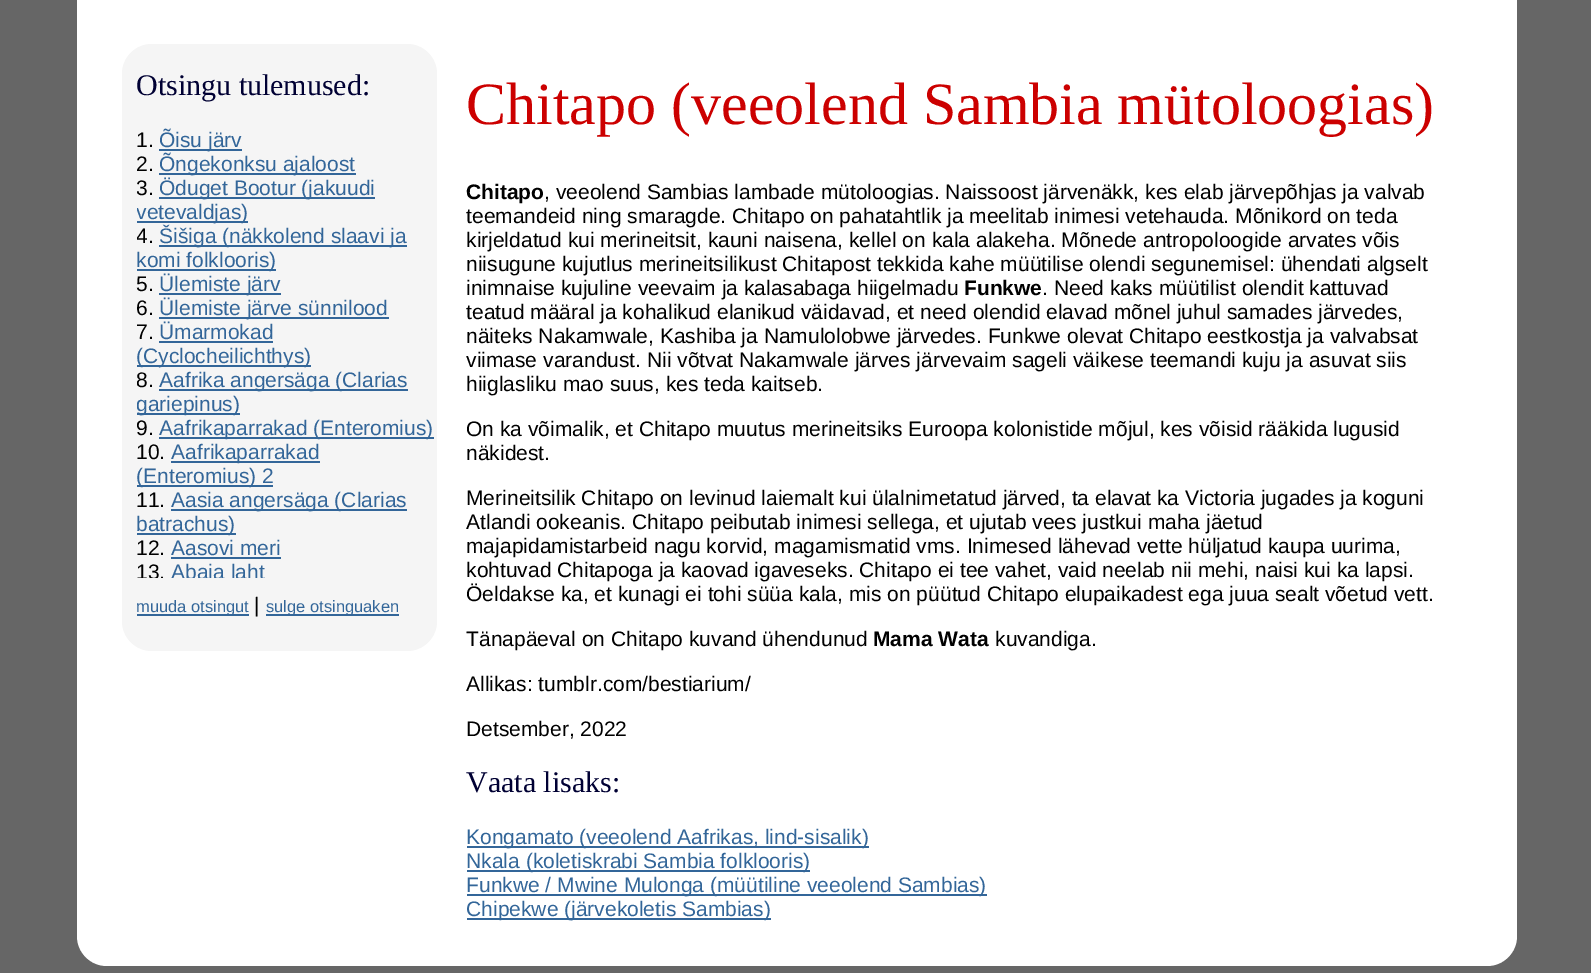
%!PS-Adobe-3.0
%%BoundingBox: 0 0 1591 973
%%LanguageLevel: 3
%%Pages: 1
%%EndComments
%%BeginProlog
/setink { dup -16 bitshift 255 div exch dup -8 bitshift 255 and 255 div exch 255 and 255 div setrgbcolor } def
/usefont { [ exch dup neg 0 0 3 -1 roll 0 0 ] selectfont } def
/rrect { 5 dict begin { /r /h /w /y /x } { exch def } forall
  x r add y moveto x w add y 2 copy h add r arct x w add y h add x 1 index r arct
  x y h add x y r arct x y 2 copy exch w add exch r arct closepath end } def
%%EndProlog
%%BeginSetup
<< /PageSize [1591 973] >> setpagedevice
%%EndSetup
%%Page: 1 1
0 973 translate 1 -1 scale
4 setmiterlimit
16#666666 setink
0 0 1591 973 rectfill
16#FFFFFF setink
77 -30 1440 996 30 rrect fill
16#F5F5F5 setink
122 44 315 607 30 rrect fill
/LiberationSerif-Regular 30 usefont
16#000033 setink
136 95 moveto (Otsingu tulemused:) show
/LiberationSans-Regular 21 usefont
16#000000 setink
136 147 moveto (1.) show
16#336699 setink
159 149 83 2 rectfill
159 147 moveto (Õisu järv) show
16#000000 setink
136 171 moveto (2.) show
16#336699 setink
159 173 197 2 rectfill
159 171 moveto (Õngekonksu ajaloost) show
gsave
137 128 300 450 rectclip
16#000000 setink
136 195 moveto (3.) show
grestore
159 197 216 2 rectfill
159 195 moveto (Öduget Bootur \(jakuudi) show
137 221 111 2 rectfill
gsave
137 128 300 450 rectclip
136 219 moveto (vetevaldjas\)) show
16#000000 setink
136 243 moveto (4.) show
grestore
159 245 248 2 rectfill
159 243 moveto (Šišiga \(näkkolend slaavi ja) show
137 269 139 2 rectfill
136 267 moveto (komi folklooris\)) show
16#000000 setink
136 291 moveto (5.) show
16#336699 setink
159 293 122 2 rectfill
159 291 moveto (Ülemiste järv) show
gsave
137 128 300 450 rectclip
16#000000 setink
136 315 moveto (6.) show
grestore
159 317 230 2 rectfill
159 315 moveto (Ülemiste järve sünnilood) show
16#000000 setink
136 339 moveto (7.) show
16#336699 setink
159 339 moveto (Ümarmokad) show
159 341 114 2 rectfill
137 365 174 2 rectfill
136 363 moveto (\(Cyclocheilichthys\)) show
gsave
137 128 300 450 rectclip
16#000000 setink
136 387 moveto (8.) show
grestore
159 389 249 2 rectfill
159 387 moveto (Aafrika angersäga \(Clarias) show
137 413 103 2 rectfill
gsave
137 128 300 450 rectclip
136 411 moveto (gariepinus\)) show
16#000000 setink
136 435 moveto (9.) show
grestore
159 437 275 2 rectfill
159 435 moveto (Aafrikaparrakad \(Enteromius\)) show
16#000000 setink
136 459 moveto (10.) show
16#336699 setink
171 461 149 2 rectfill
171 459 moveto (Aafrikaparrakad) show
137 485 136 2 rectfill
136 483 moveto (\(Enteromius\) 2) show
16#000000 setink
136 507 moveto (11.) show
16#336699 setink
171 509 236 2 rectfill
171 507 moveto (Aasia angersäga \(Clarias) show
137 533 99 2 rectfill
136 531 moveto (batrachus\)) show
16#000000 setink
136 555 moveto (12.) show
16#336699 setink
171 555 moveto (Aasovi meri) show
171 557 110 2 rectfill
gsave
137 128 300 450 rectclip
16#000000 setink
136 579 moveto (13.) show
16#336699 setink
171 579 moveto (Abaja laht) show
grestore
137 614 112 2 rectfill
/LiberationSans-Regular 16.5 usefont
136 612 moveto (muuda otsingut) show
/LiberationSans-Regular 21 usefont
16#000000 setink
254 612 moveto (|) show
16#336699 setink
266 614 133 2 rectfill
/LiberationSans-Regular 16.5 usefont
266 612 moveto (sulge otsinguaken) show
/LiberationSerif-Regular 60 usefont
16#CC0000 setink
466 124 moveto (Chitapo \(veeolend Sambia mütoloogias\)) show
/LiberationSans-Bold 21 usefont
16#000000 setink
466 199 moveto (Chitapo) show
/LiberationSans-Regular 21 usefont
[
    [(, veeolend Sambias lambade mütoloogias. Naissoost järvenäkk, kes elab järvepõhjas ja valvab) 544 199]
    [(teemandeid ning smaragde. Chitapo on pahatahtlik ja meelitab inimesi vetehauda. Mõnikord on teda) 466 223]
    [(kirjeldatud kui merineitsit, kauni naisena, kellel on kala alakeha. Mõnede antropoloogide arvates võis) 466 247]
    [(niisugune kujutlus merineitsilikust Chitapost tekkida kahe müütilise olendi segunemisel: ühendati algselt) 466 271]
    [(inimnaise kujuline veevaim ja kalasabaga hiigelmadu) 466 295]
] { aload pop moveto show } forall
/LiberationSans-Bold 21 usefont
964 295 moveto (Funkwe) show
/LiberationSans-Regular 21 usefont
[
    [(. Need kaks müütilist olendit kattuvad) 1042 295]
    [(teatud määral ja kohalikud elanikud väidavad, et need olendid elavad mõnel juhul samades järvedes,) 466 319]
    [(näiteks Nakamwale, Kashiba ja Namulolobwe järvedes. Funkwe olevat Chitapo eestkostja ja valvabsat) 466 343]
    [(viimase varandust. Nii võtvat Nakamwale järves järvevaim sageli väikese teemandi kuju ja asuvat siis) 466 367]
    [(hiiglasliku mao suus, kes teda kaitseb.) 466 391]
    [(On ka võimalik, et Chitapo muutus merineitsiks Euroopa kolonistide mõjul, kes võisid rääkida lugusid) 466 436]
    [(näkidest.) 466 460]
    [(Merineitsilik Chitapo on levinud laiemalt kui ülalnimetatud järved, ta elavat ka Victoria jugades ja koguni) 466 505]
    [(Atlandi ookeanis. Chitapo peibutab inimesi sellega, et ujutab vees justkui maha jäetud) 466 529]
    [(majapidamistarbeid nagu korvid, magamismatid vms. Inimesed lähevad vette hüljatud kaupa uurima,) 466 553]
    [(kohtuvad Chitapoga ja kaovad igaveseks. Chitapo ei tee vahet, vaid neelab nii mehi, naisi kui ka lapsi.) 466 577]
    [(Öeldakse ka, et kunagi ei tohi süüa kala, mis on püütud Chitapo elupaikadest ega juua sealt võetud vett.) 466 601]
    [(Tänapäeval on Chitapo kuvand ühendunud) 466 646]
] { aload pop moveto show } forall
/LiberationSans-Bold 21 usefont
873 646 moveto (Mama Wata) show
/LiberationSans-Regular 21 usefont
[
    [(kuvandiga.) 995 646]
    [(Allikas: tumblr.com/bestiarium/) 466 691]
    [(Detsember, 2022) 466 736]
] { aload pop moveto show } forall
/LiberationSerif-Regular 30 usefont
16#000033 setink
466 792 moveto (Vaata lisaks:) show
16#336699 setink
467 846 402 2 rectfill
/LiberationSans-Regular 21 usefont
466 844 moveto (Kongamato \(veeolend Aafrikas, lind-sisalik\)) show
467 870 343 2 rectfill
466 868 moveto (Nkala \(koletiskrabi Sambia folklooris\)) show
467 894 520 2 rectfill
466 892 moveto (Funkwe / Mwine Mulonga \(müütiline veeolend Sambias\)) show
467 918 304 2 rectfill
466 916 moveto (Chipekwe \(järvekoletis Sambias\)) show
showpage
%%EOF
